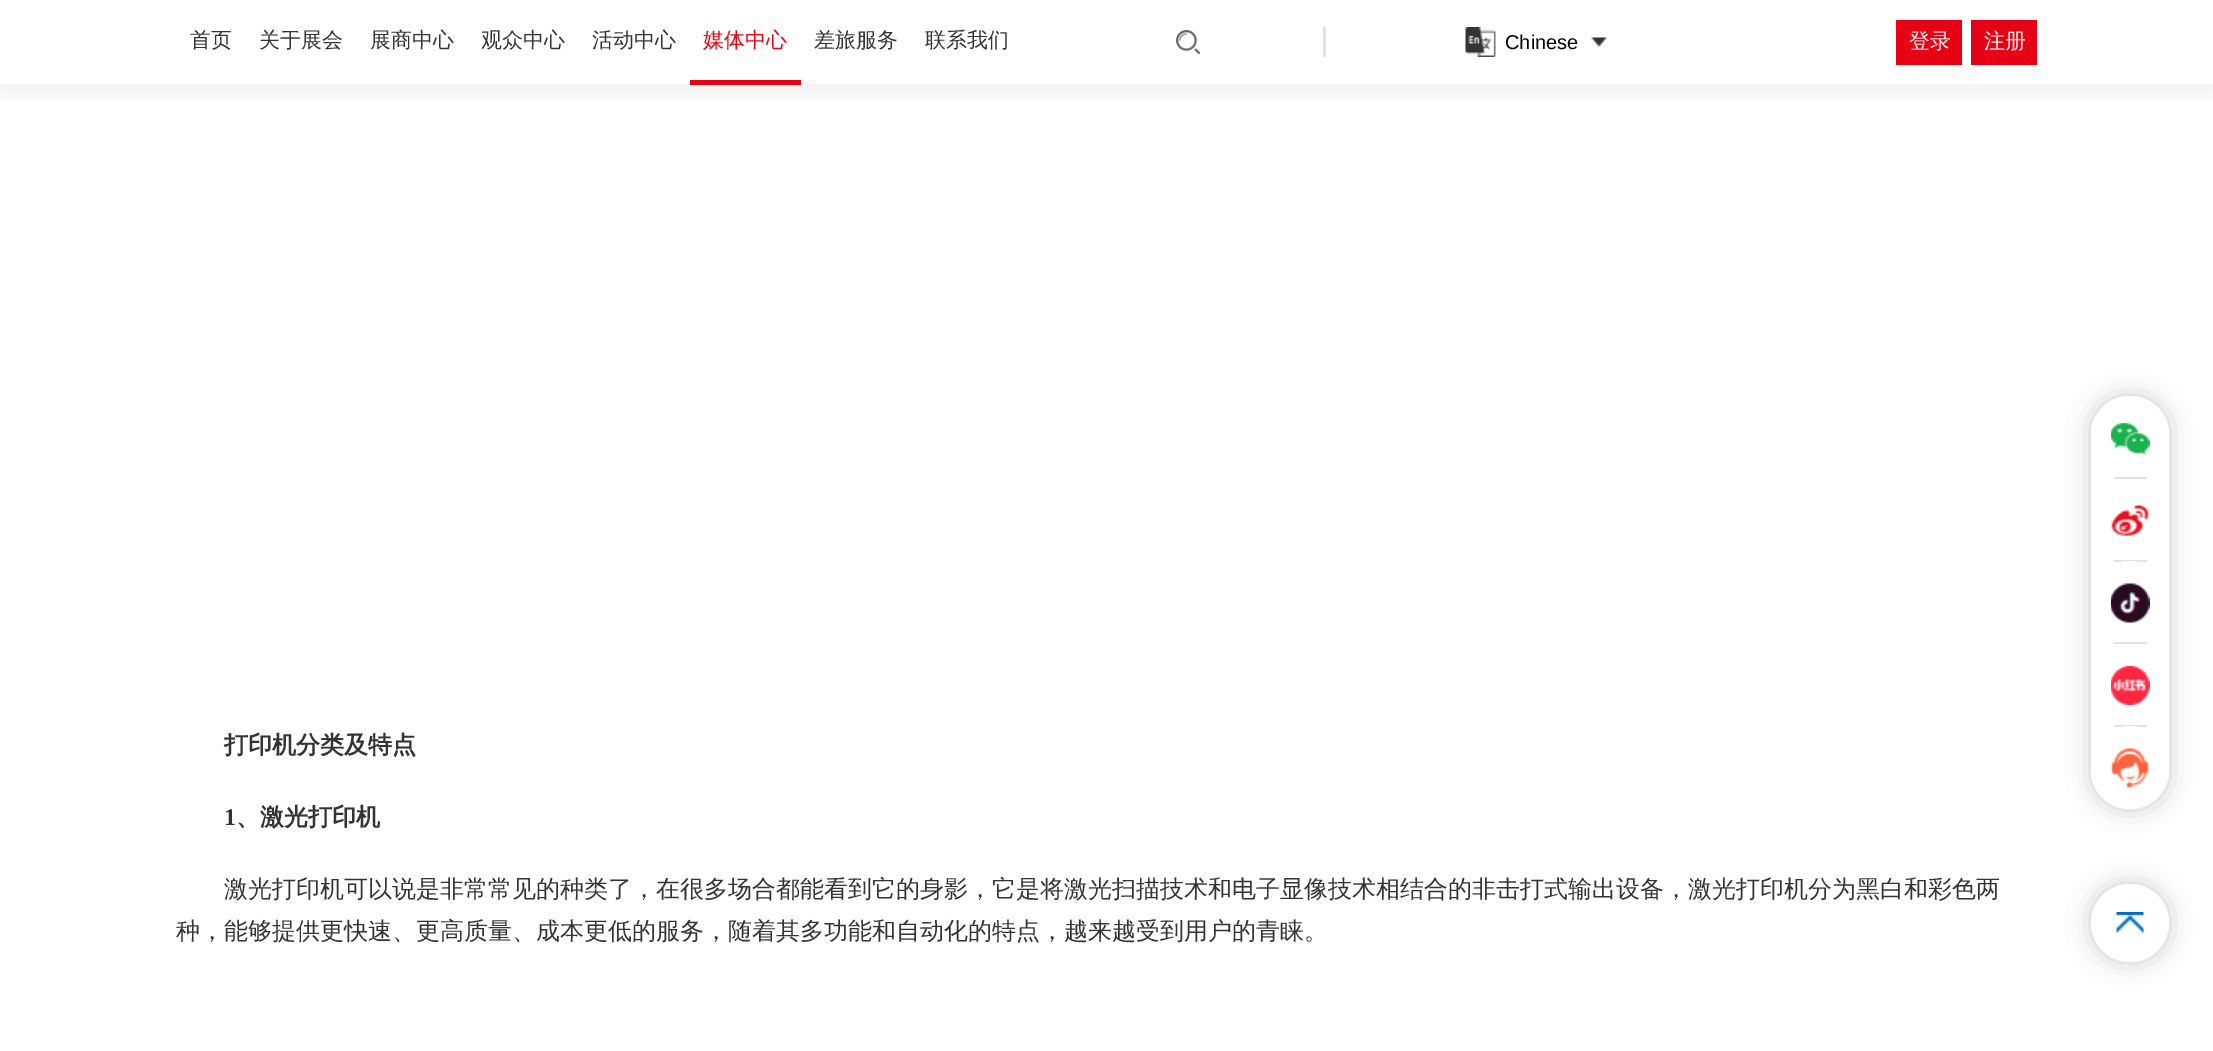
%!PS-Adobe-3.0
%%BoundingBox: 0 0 2213 1051
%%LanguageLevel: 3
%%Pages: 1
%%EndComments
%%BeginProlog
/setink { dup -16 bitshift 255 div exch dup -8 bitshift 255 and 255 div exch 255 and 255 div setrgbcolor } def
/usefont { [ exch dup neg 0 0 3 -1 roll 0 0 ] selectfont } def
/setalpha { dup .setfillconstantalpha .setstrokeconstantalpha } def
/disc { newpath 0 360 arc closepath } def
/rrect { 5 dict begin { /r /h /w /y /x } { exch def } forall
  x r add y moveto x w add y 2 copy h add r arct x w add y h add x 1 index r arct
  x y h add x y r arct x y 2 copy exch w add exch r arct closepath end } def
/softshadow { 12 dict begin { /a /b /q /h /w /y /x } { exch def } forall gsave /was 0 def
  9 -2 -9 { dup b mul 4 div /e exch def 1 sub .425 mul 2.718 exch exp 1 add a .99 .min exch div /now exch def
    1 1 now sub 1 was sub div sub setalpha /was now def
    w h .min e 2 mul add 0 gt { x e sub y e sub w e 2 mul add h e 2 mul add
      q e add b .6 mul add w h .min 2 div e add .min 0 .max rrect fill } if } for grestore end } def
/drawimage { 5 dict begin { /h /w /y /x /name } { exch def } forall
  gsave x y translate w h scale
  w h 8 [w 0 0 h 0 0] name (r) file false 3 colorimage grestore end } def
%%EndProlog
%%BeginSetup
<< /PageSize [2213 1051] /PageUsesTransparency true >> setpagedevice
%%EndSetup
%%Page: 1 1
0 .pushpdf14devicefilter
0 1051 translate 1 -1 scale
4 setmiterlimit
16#FFFFFF setink
0 0 2213 1051 rectfill
gsave
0 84 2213 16 rectclip
16#000000 setink
0 5 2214 84 0 19 0.07 softshadow
grestore
/WenQuanYiZenHei-Medium 21 usefont
16#333333 setink
[
    [(首页) 190 47]
    [(关于展会) 259 47]
    [(展商中心) 370 47]
    [(观众中心) 481 47]
    [(活动中心) 592 47]
] { aload pop moveto show } forall
16#E60214 setink
703 47 moveto (媒体中心) show
690 80 111 5 rectfill
16#333333 setink
814 47 moveto (差旅服务) show
925 47 moveto (联系我们) show
(img1.raw) 1176 30 24 24 drawimage
16#E2E2E2 setink
1323 27 3 30 rectfill
(img2.raw) 1465 27 31 30 drawimage
(img3.raw) 1591 37 16 10 drawimage
/LiberationSans-Regular 20 usefont
16#000000 setink
1505 49 moveto (Chinese) show
16#E60214 setink
1896 20 66 45 rectfill
/WenQuanYiZenHei-Medium 21 usefont
16#FFFFFF setink
1909 48 moveto (登录) show
16#E60214 setink
1971 20 66 45 rectfill
16#FFFFFF setink
1984 48 moveto (注册) show
/WenQuanYiZenHei-Bold 24 usefont
16#333333 setink
224 753 moveto (打印机分类及特点) show
/LiberationSerif-Bold 24 usefont
224 825 moveto (1) show
/WenQuanYiZenHei-Bold 24 usefont
236 825 moveto (、激光打印机) show
/WenQuanYiZenHei-Medium 24 usefont
224 897 moveto (激光打印机可以说是非常常见的种类了，在很多场合都能看到它的身影，它是将激光扫描技术和电子显像技术相结合的非击打式输出设备，激光打印机分为黑白和彩色两) show
176 939 moveto (种，能够提供更快速、更高质量、成本更低的服务，随着其多功能和自动化的特点，越来越受到用户的青睐。) show
16#000000 setink
2091 396 78 413 39 12 0.2 softshadow
16#FFFFFF setink
2091 396 78 413 39 rrect fill
2091 396 78 83 39 rrect fill
(img4.raw) 2111 422 39 33 drawimage
16#E2E2E2 setink
2114 477 33 2 rectfill
(img5.raw) 2111 505 38 31 drawimage
2114 560 33 2 rectfill
16#FFFFFF setink
2091 561 78 83 39 rrect fill
(img6.raw) 2111 583 39 40 drawimage
16#E2E2E2 setink
2114 642 33 2 rectfill
(img7.raw) 2111 666 39 39 drawimage
2114 725 33 2 rectfill
16#FFFFFF setink
2091 726 78 83 39 rrect fill
(img8.raw) 2111 748 38 40 drawimage
16#000000 setink
2091 884 78 78 39 12 0.2 softshadow
16#FFFFFF setink
2130 923 39 disc fill
(img9.raw) 2116 912 28 21 drawimage
.poppdf14devicefilter showpage
%%EOF
